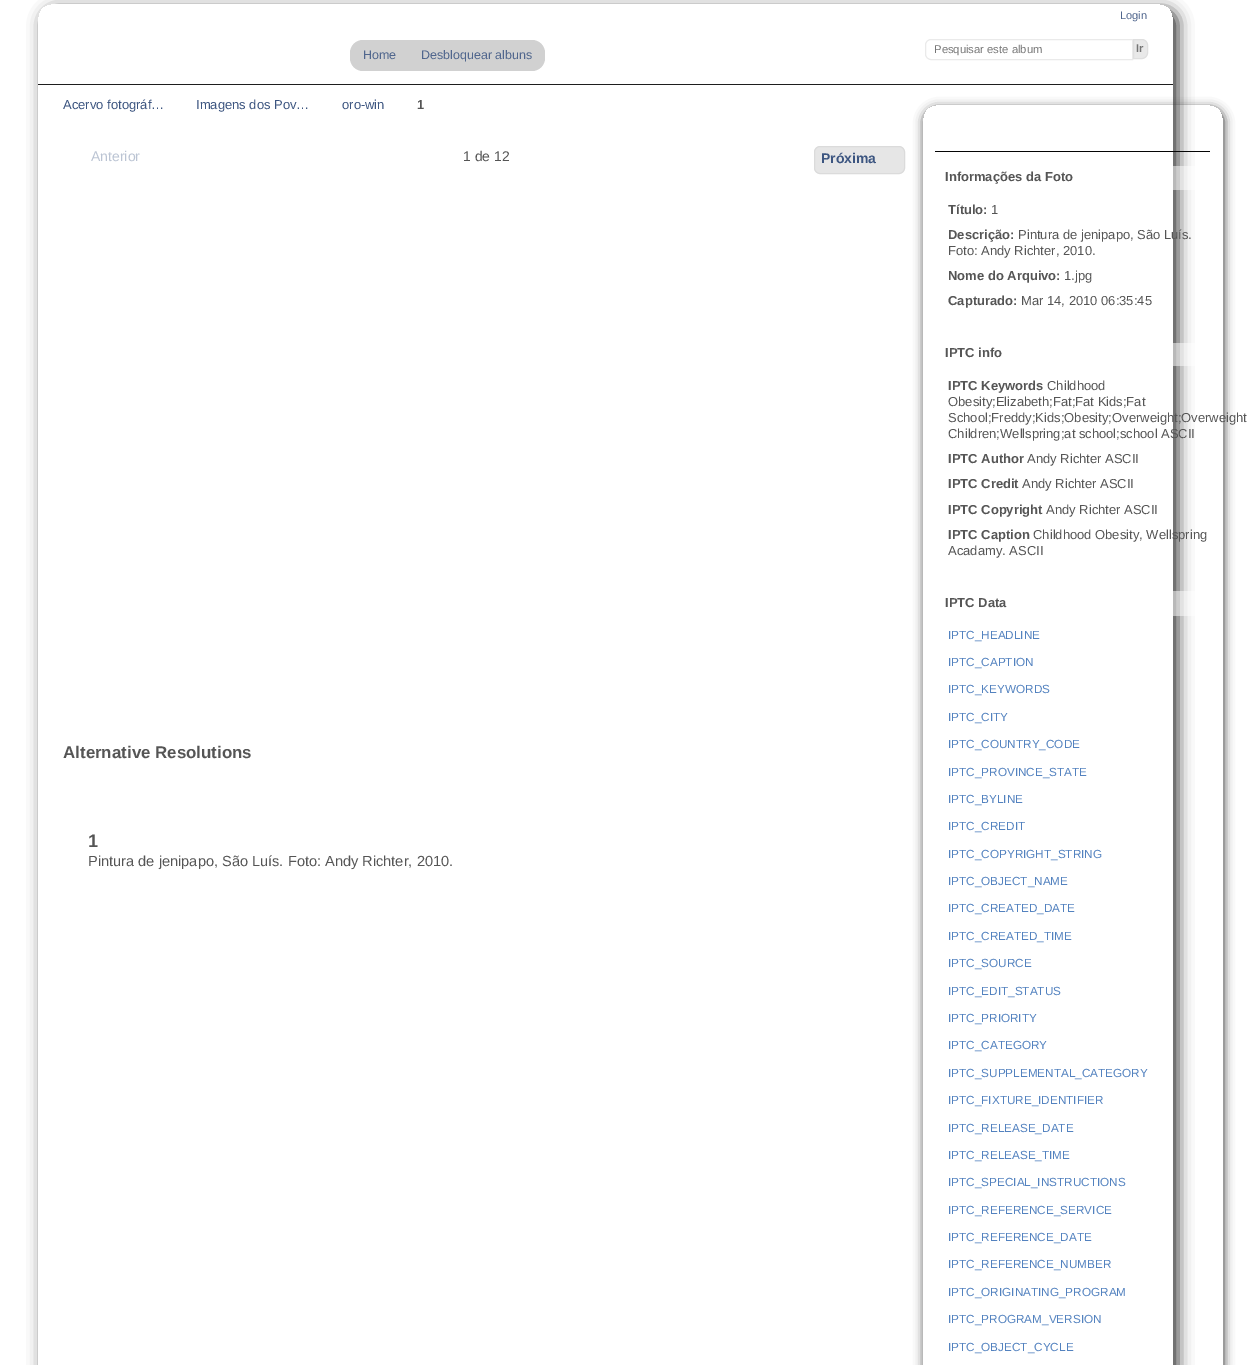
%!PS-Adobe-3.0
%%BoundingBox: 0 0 1259 1365
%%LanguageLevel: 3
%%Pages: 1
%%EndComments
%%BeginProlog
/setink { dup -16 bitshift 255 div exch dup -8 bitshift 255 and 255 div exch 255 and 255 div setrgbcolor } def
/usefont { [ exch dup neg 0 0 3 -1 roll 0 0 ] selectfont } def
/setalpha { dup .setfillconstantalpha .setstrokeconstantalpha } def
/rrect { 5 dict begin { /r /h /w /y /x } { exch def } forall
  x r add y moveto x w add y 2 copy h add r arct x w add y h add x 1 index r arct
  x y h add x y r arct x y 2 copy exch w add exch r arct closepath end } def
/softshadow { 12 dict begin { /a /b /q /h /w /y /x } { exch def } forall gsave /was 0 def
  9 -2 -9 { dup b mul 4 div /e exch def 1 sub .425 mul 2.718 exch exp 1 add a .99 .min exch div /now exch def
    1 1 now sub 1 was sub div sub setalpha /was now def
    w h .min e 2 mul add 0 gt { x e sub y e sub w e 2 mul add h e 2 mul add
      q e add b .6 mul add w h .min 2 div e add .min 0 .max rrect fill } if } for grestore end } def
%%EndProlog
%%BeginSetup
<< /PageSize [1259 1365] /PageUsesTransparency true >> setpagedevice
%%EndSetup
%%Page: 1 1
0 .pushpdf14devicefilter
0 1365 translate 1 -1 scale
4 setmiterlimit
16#FFFFFF setink
0 0 1259 1365 rectfill
gsave
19 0 moveto 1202 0 lineto 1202 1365 lineto 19 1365 lineto closepath 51 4 moveto 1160 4 lineto 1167 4 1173 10 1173 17 curveto 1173 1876 lineto 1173 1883 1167 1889 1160 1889 curveto 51 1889 lineto 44 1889 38 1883 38 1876 curveto 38 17 lineto 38 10 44 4 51 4 curveto closepath eoclip newpath
16#333333 setink
43 9 1135 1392 13 7.5 1 softshadow
grestore
0.9 setalpha
16#050505 setink
38 84 1135 1 rectfill
/LiberationSans-Regular 11 usefont
1 setalpha
16#50668D setink
1120 19 moveto (Login) show
16#D1D1D1 setink
350 40 195 31 13 rrect fill
/LiberationSans-Regular 12.5 usefont
16#50668D setink
363 59 moveto (Home) show
421 59 moveto (Desbloquear albuns) show
16#EAEAEA setink
931 39.5 moveto 1132.5 39.5 lineto 1132.5 59.5 lineto 931 59.5 lineto 928 59.5 925.5 57 925.5 54 curveto 925.5 45 lineto 925.5 42 928 39.5 931 39.5 curveto closepath stroke
/LiberationSans-Regular 11.25 usefont
16#757575 setink
934 53 moveto (Pesquisar este album) show
16#E9E9E9 setink
1133.5 39.5 moveto 1142 39.5 lineto 1145 39.5 1147.5 42 1147.5 45 curveto 1147.5 53 lineto 1147.5 56 1145 58.5 1142 58.5 curveto 1133.5 58.5 lineto closepath gsave fill grestore
16#DFDFDF setink
stroke
/LiberationSans-Bold 11.25 usefont
16#757575 setink
1136 52 moveto (Ir) show
/LiberationSans-Regular 13 usefont
16#3C5580 setink
[
    [(Acervo fotográf…) 63 109]
    [(Imagens dos Pov…) 196 109]
    [(oro-win) 342 109]
] { aload pop moveto show } forall
/LiberationSans-Bold 13 usefont
16#555555 setink
417 109 moveto (1) show
/LiberationSans-Regular 14 usefont
16#BBC4D3 setink
91 161 moveto (Anterior) show
16#555555 setink
463 161 moveto (1 de 12) show
16#E6E6E6 setink
814.5 146.5 90 27 5.5 rrect gsave fill grestore
16#DBDBDB setink
stroke
/LiberationSans-Bold 14 usefont
16#3C5580 setink
821 163 moveto (Próxima) show
/LiberationSans-Bold 16.9 usefont
16#555555 setink
63 758 moveto (Alternative Resolutions) show
/LiberationSans-Bold 18 usefont
88 847 moveto (1) show
/LiberationSans-Regular 14.6 usefont
88 866 moveto (Pintura de jenipapo, São Luís. Foto: Andy Richter, 2010.) show
gsave
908 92 moveto 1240 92 lineto 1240 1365 lineto 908 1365 lineto closepath 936 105 moveto 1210 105 lineto 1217 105 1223 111 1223 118 curveto 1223 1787 lineto 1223 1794 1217 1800 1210 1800 curveto 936 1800 lineto 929 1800 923 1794 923 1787 curveto 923 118 lineto 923 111 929 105 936 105 curveto closepath eoclip newpath
16#333333 setink
924 108 300 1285 13 5 1 softshadow
grestore
16#050505 setink
935 151 275 1 rectfill
0.5 setalpha
16#FFFFFF setink
935 166 275 24 6 rrect fill
/LiberationSans-Bold 13 usefont
1 setalpha
16#555555 setink
945 181 moveto (Informações da Foto) show
948 214 moveto (Título:) show
/LiberationSans-Regular 13 usefont
991 214 moveto (1) show
/LiberationSans-Bold 13 usefont
948 239 moveto (Descrição:) show
/LiberationSans-Regular 13 usefont
1018 239 moveto (Pintura de jenipapo, São Luís.) show
948 255 moveto (Foto: Andy Richter, 2010.) show
/LiberationSans-Bold 13 usefont
948 280 moveto (Nome do Arquivo:) show
/LiberationSans-Regular 13 usefont
1064 280 moveto (1.jpg) show
/LiberationSans-Bold 13 usefont
948 305 moveto (Capturado:) show
/LiberationSans-Regular 13 usefont
1021 305 moveto (Mar 14, 2010 06:35:45) show
0.5 setalpha
16#FFFFFF setink
935 343 275 23 6 rrect fill
/LiberationSans-Bold 13 usefont
1 setalpha
16#555555 setink
945 357 moveto (IPTC info) show
948 390 moveto (IPTC Keywords) show
/LiberationSans-Regular 13 usefont
[
    [(Childhood) 1047 390]
    [(Obesity;Elizabeth;Fat;Fat Kids;Fat) 948 406]
    [(School;Freddy;Kids;Obesity;Overweight;Overweight) 948 422]
    [(Children;Wellspring;at school;school ASCII) 948 438]
] { aload pop moveto show } forall
/LiberationSans-Bold 13 usefont
948 463 moveto (IPTC Author) show
/LiberationSans-Regular 13 usefont
1027 463 moveto (Andy Richter ASCII) show
/LiberationSans-Bold 13 usefont
948 488 moveto (IPTC Credit) show
/LiberationSans-Regular 13 usefont
1022 488 moveto (Andy Richter ASCII) show
/LiberationSans-Bold 13 usefont
948 514 moveto (IPTC Copyright) show
/LiberationSans-Regular 13 usefont
1046 514 moveto (Andy Richter ASCII) show
/LiberationSans-Bold 13 usefont
948 539 moveto (IPTC Caption) show
/LiberationSans-Regular 13 usefont
1033 539 moveto (Childhood Obesity, Wellspring) show
948 555 moveto (Acadamy. ASCII) show
0.5 setalpha
16#FFFFFF setink
935 591 275 25 6 rrect fill
/LiberationSans-Bold 13 usefont
1 setalpha
16#555555 setink
945 607 moveto (IPTC Data) show
/LiberationSans-Regular 11.75 usefont
16#5382BF setink
[
    [(IPTC_HEADLINE) 948 639]
    [(IPTC_CAPTION) 948 666]
    [(IPTC_KEYWORDS) 948 693]
    [(IPTC_CITY) 948 721]
    [(IPTC_COUNTRY_CODE) 948 748]
    [(IPTC_PROVINCE_STATE) 948 776]
    [(IPTC_BYLINE) 948 803]
    [(IPTC_CREDIT) 948 830]
    [(IPTC_COPYRIGHT_STRING) 948 858]
    [(IPTC_OBJECT_NAME) 948 885]
    [(IPTC_CREATED_DATE) 948 912]
    [(IPTC_CREATED_TIME) 948 940]
    [(IPTC_SOURCE) 948 967]
    [(IPTC_EDIT_STATUS) 948 995]
    [(IPTC_PRIORITY) 948 1022]
    [(IPTC_CATEGORY) 948 1049]
    [(IPTC_SUPPLEMENTAL_CATEGORY) 948 1077]
    [(IPTC_FIXTURE_IDENTIFIER) 948 1104]
    [(IPTC_RELEASE_DATE) 948 1132]
    [(IPTC_RELEASE_TIME) 948 1159]
    [(IPTC_SPECIAL_INSTRUCTIONS) 948 1186]
    [(IPTC_REFERENCE_SERVICE) 948 1214]
    [(IPTC_REFERENCE_DATE) 948 1241]
    [(IPTC_REFERENCE_NUMBER) 948 1268]
    [(IPTC_ORIGINATING_PROGRAM) 948 1296]
    [(IPTC_PROGRAM_VERSION) 948 1323]
    [(IPTC_OBJECT_CYCLE) 948 1351]
] { aload pop moveto show } forall
.poppdf14devicefilter showpage
%%EOF
